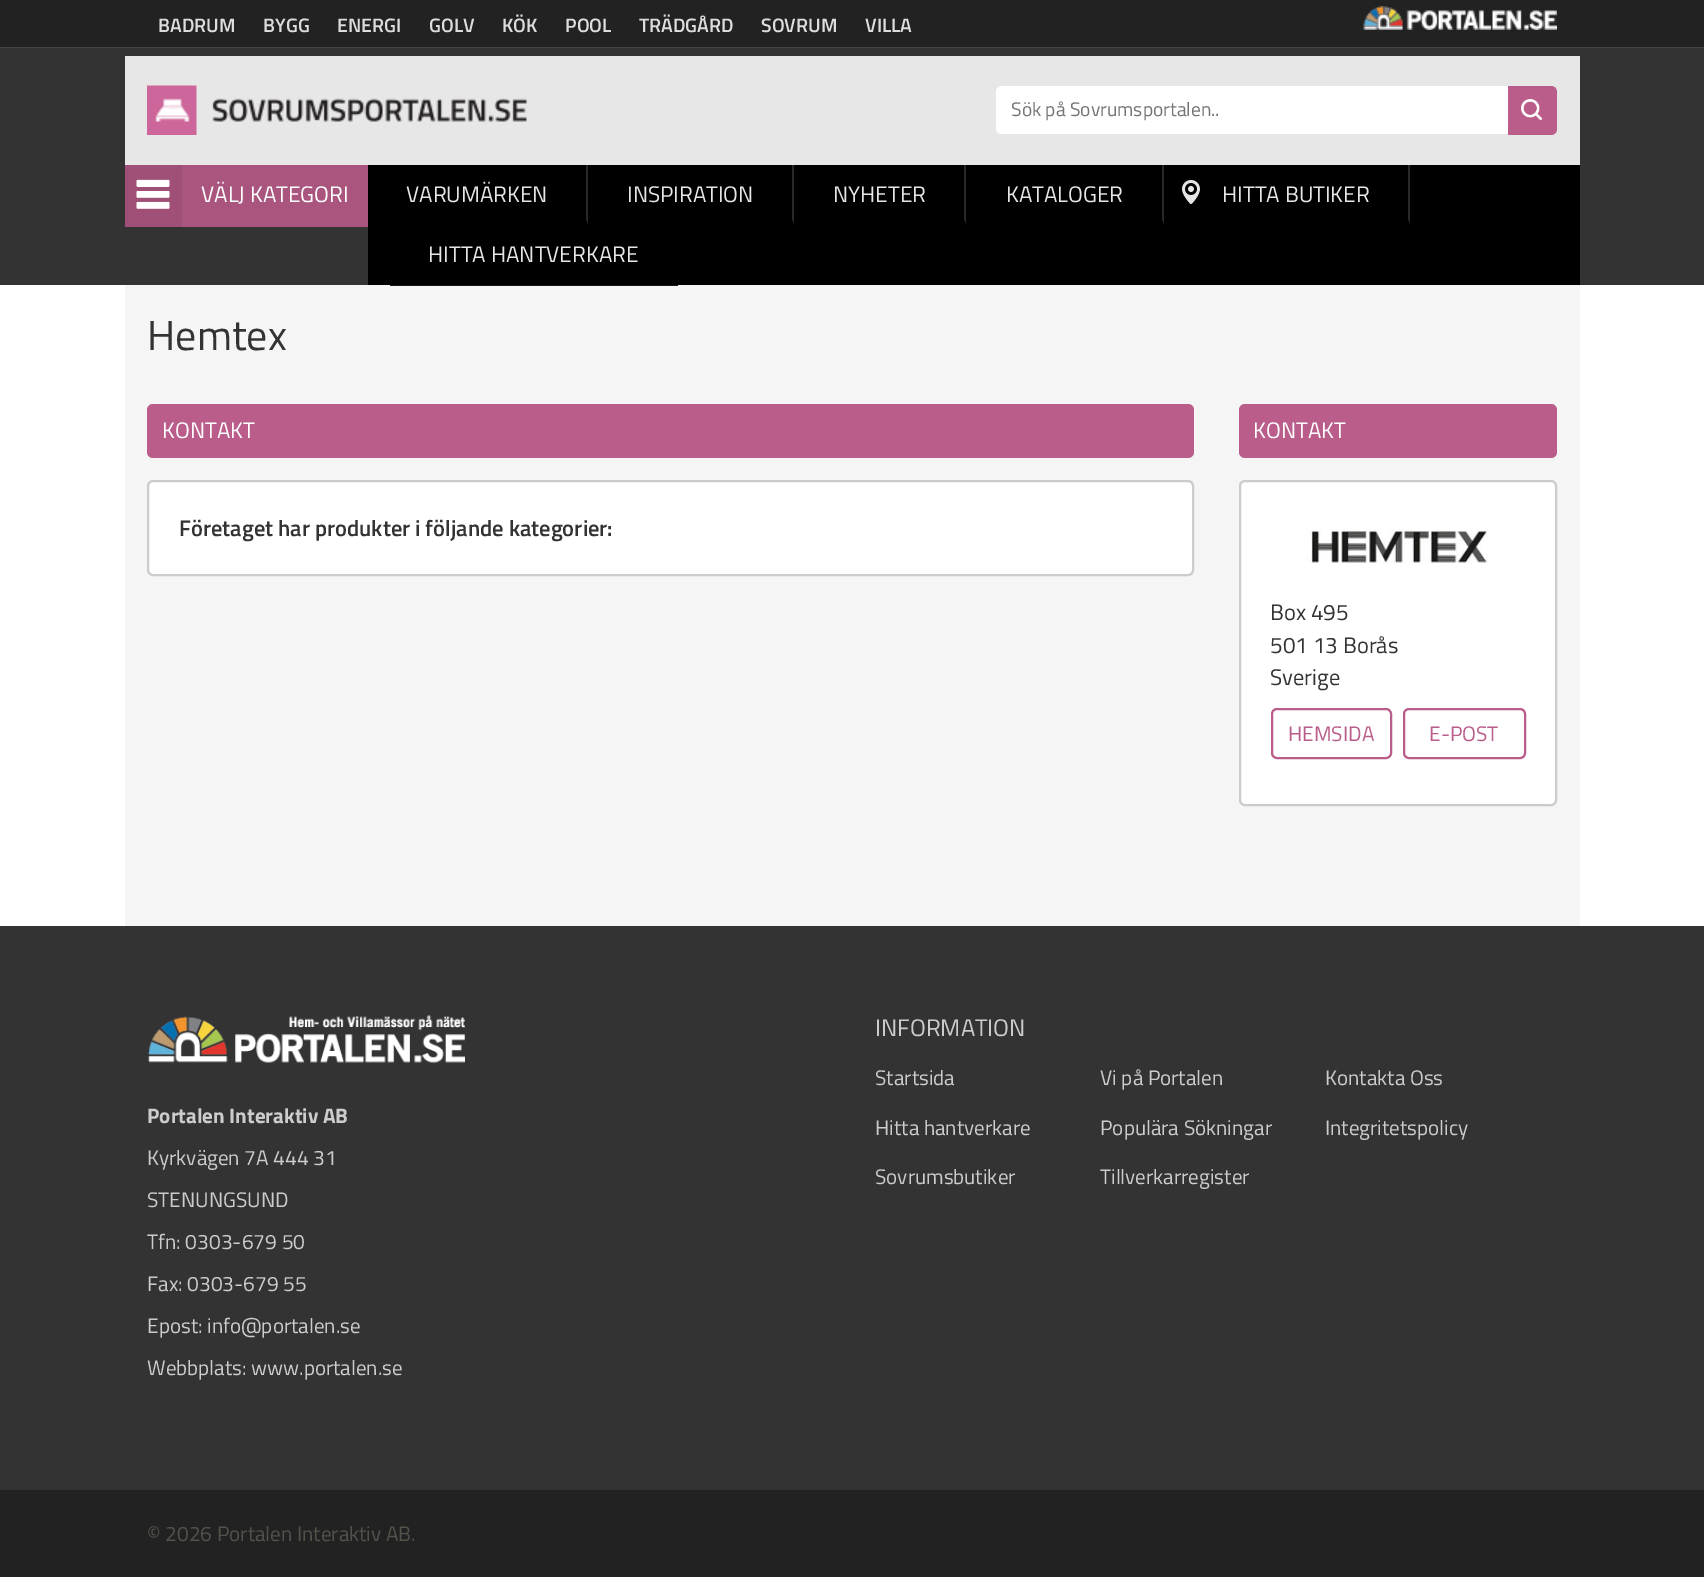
%!PS-Adobe-3.0
%%BoundingBox: 0 0 1704 1588
%%LanguageLevel: 3
%%Pages: 1
%%EndComments
%%BeginProlog
/setink { dup -16 bitshift 255 div exch dup -8 bitshift 255 and 255 div exch 255 and 255 div setrgbcolor } def
/usefont { [ exch dup neg 0 0 3 -1 roll 0 0 ] selectfont } def
/rrect { 5 dict begin { /r /h /w /y /x } { exch def } forall
  x r add y moveto x w add y 2 copy h add r arct x w add y h add x 1 index r arct
  x y h add x y r arct x y 2 copy exch w add exch r arct closepath end } def
/drawimage { 5 dict begin { /h /w /y /x /name } { exch def } forall
  gsave x y translate w h scale
  w h 8 [w 0 0 h 0 0] name (r) file false 3 colorimage grestore end } def
%%EndProlog
%%BeginSetup
<< /PageSize [1704 1588] >> setpagedevice
%%EndSetup
%%Page: 1 1
0 1588 translate 1 -1 scale
4 setmiterlimit
16#FFFFFF setink
0 0 1704 1588 rectfill
16#222222 setink
0 0 1704 47 rectfill
/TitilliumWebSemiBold-SemiBold 19.5 usefont
16#DDDDDD setink
[
    [(BADRUM) 158 32]
    [(BYGG) 263 32]
    [(ENERGI) 337 32]
    [(GOLV) 429 32]
    [(KÖK) 502 32]
    [(POOL) 565 32]
    [(TRÄDGÅRD) 639 32]
    [(SOVRUM) 761 32]
    [(VILLA) 865 32]
] { aload pop moveto show } forall
(img1.raw) 1363 6 194 24 drawimage
[
    [0 47 1704 1 16#444444]
    [0 48 1704 237 16#333333]
    [125 56 1455 109 16#E7E7E7]
] { aload pop setink rectfill } forall
(img2.raw) 147 85 380 50 drawimage
16#FFFFFF setink
996 86 561 48 6 rrect fill
/TitilliumWeb-Regular 19.5 usefont
16#757575 setink
1011 116 moveto (Sök på Sovrumsportalen..) show
16#BB5D8B setink
1508 86 moveto 1551 86 lineto 1554.5 86 1557 88.5 1557 92 curveto 1557 129 lineto 1557 132.5 1554.5 135 1551 135 curveto 1508 135 lineto closepath fill
(img3.raw) 1521 99 21 21 drawimage
16#AA557E setink
182 165 186 62 rectfill
16#A05076 setink
125 165 57 62 rectfill
(img4.raw) 136 179 34 30 drawimage
/TitilliumWeb-Regular 22.5 usefont
16#FFFFFF setink
201 202 moveto (VÄLJ KATEGORI) show
16#000000 setink
368 165 1212 120 rectfill
16#282828 setink
588 165 moveto 588 225 lineto 586 220 lineto 586 165 lineto closepath fill
16#000000 setink
588 225 moveto 368 225 lineto 368 220 lineto 586 220 lineto closepath fill
16#E6E6E6 setink
406 202 moveto (VARUMÄRKEN) show
16#282828 setink
794 165 moveto 794 225 lineto 792 220 lineto 792 165 lineto closepath fill
16#000000 setink
794 225 moveto 588 225 lineto 588 220 lineto 792 220 lineto closepath fill
16#E6E6E6 setink
627 202 moveto (INSPIRATION) show
16#282828 setink
966 165 moveto 966 225 lineto 964 220 lineto 964 165 lineto closepath fill
16#000000 setink
966 225 moveto 794 225 lineto 794 220 lineto 964 220 lineto closepath fill
16#E6E6E6 setink
833 202 moveto (NYHETER) show
16#282828 setink
1164 165 moveto 1164 225 lineto 1162 220 lineto 1162 165 lineto closepath fill
16#000000 setink
1164 225 moveto 966 225 lineto 966 220 lineto 1162 220 lineto closepath fill
16#E6E6E6 setink
1006 202 moveto (KATALOGER) show
(img5.raw) 1182 180 18 24 drawimage
16#282828 setink
1410 165 moveto 1410 225 lineto 1408 220 lineto 1408 165 lineto closepath fill
16#000000 setink
1410 225 moveto 1164 225 lineto 1164 220 lineto 1408 220 lineto closepath fill
16#E6E6E6 setink
1222 202 moveto (HITTA BUTIKER) show
428 262 moveto (HITTA HANTVERKARE) show
16#F5F5F5 setink
125 285 1455 641 rectfill
16#181818 setink
390 285 288 1 rectfill
/TitilliumWeb-Regular 42 usefont
16#333333 setink
147 350 moveto (Hemtex) show
16#BB5D8B setink
147 404 1047 54 6 rrect fill
/TitilliumWeb-Regular 22.5 usefont
16#FFFFFF setink
162 438 moveto (KONTAKT) show
148 481 1045 94 5 rrect gsave fill grestore
16#CCCCCC setink
2 setlinewidth
stroke
/TitilliumWebSemiBold-SemiBold 22.5 usefont
16#333333 setink
179 536 moveto (Företaget har produkter i följande kategorier:) show
16#BB5D8B setink
1239 404 318 54 6 rrect fill
/TitilliumWeb-Regular 22.5 usefont
16#FFFFFF setink
1253 438 moveto (KONTAKT) show
1240 481 316 324 5 rrect gsave fill grestore
16#CCCCCC setink
stroke
(img6.raw) 1306 529 182 34 drawimage
16#333333 setink
[
    [(Box 495) 1270 620]
    [(501 13 Borås) 1270 653]
    [(Sverige) 1270 685]
] { aload pop moveto show } forall
16#BB5D8B setink
1272 709 119 49 5 rrect stroke
/TitilliumWeb-Regular 21 usefont
1288 741 moveto (HEMSIDA) show
1404 709 121 49 5 rrect stroke
1429 741 moveto (E-POST) show
16#333333 setink
0 926 1704 564 rectfill
(img7.raw) 148 1015 317 48 drawimage
/TitilliumWeb-Bold 21 usefont
16#CCCCCC setink
147 1123 moveto (Portalen Interaktiv AB) show
/TitilliumWeb-Regular 21 usefont
[
    [(Kyrkvägen 7A 444 31) 147 1165]
    [(STENUNGSUND) 147 1207]
    [(Tfn: 0303-679 50) 147 1249]
    [(Fax: 0303-679 55) 147 1291]
    [(Epost: info@portalen.se) 147 1333]
    [(Webbplats: www.portalen.se) 147 1375]
] { aload pop moveto show } forall
/TitilliumWeb-Regular 24 usefont
875 1036 moveto (INFORMATION) show
/TitilliumWeb-Regular 21 usefont
[
    [(Startsida) 875 1085]
    [(Vi på Portalen) 1100 1085]
    [(Kontakta Oss) 1325 1085]
    [(Hitta hantverkare) 875 1135]
    [(Populära Sökningar) 1100 1135]
    [(Integritetspolicy) 1325 1135]
    [(Sovrumsbutiker) 875 1184]
    [(Tillverkarregister) 1100 1184]
] { aload pop moveto show } forall
16#222222 setink
0 1490 1704 87 rectfill
16#52524A setink
147 1541 moveto (© 2026 Portalen Interaktiv AB.) show
showpage
%%EOF
